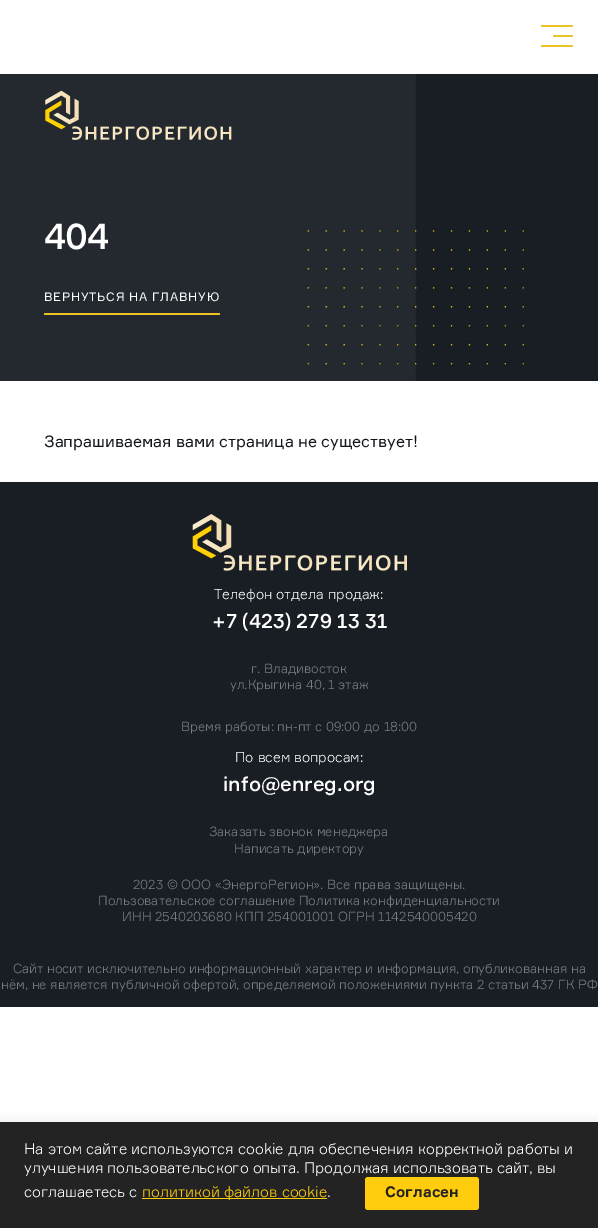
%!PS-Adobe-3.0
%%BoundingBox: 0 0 598 1228
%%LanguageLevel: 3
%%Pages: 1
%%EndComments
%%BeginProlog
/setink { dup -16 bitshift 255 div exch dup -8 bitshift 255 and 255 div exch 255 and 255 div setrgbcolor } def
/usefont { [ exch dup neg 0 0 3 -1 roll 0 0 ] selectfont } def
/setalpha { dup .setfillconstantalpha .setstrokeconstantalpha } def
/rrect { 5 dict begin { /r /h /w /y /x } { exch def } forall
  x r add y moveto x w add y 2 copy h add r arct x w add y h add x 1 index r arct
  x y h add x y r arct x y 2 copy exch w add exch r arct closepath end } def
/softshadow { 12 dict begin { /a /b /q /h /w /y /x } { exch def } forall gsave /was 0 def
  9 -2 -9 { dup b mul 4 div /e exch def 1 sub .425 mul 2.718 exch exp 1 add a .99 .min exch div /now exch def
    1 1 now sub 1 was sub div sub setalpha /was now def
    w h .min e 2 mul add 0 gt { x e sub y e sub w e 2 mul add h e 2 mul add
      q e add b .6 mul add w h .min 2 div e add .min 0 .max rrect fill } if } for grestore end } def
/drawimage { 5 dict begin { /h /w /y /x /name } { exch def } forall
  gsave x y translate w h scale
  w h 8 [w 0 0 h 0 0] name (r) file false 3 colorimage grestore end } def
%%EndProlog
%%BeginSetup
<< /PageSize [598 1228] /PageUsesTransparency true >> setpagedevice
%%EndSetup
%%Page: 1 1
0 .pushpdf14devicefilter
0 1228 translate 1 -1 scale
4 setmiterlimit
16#FFFFFF setink
0 0 598 1228 rectfill
16#EDC325 setink
553 35 20 2 1 rrect fill
541 25 32 2 1 rrect fill
541 45 32 2 1 rrect fill
(img1.raw) 0 74 598 307 drawimage
(img2.raw) 45 90 187 50 drawimage
/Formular-Medium 36 usefont
16#FFFFFF setink
44 249 moveto -1 0 (404) ashow
/Formular-Regular 12 usefont
44 301 moveto 0.8 0 (ВЕРНУТЬСЯ НА ГЛАВНУЮ) ashow
16#EDC325 setink
44 313 176 2 1 rrect fill
/Formular-Regular 16 usefont
16#12161C setink
44 447 moveto (Запрашиваемая вами страница не существует!) show
16#191E24 setink
0 482 598 525 rectfill
(img3.raw) 192 514 215 57 drawimage
/Formular-Light 14 usefont
16#FFFFFF setink
214 599 moveto (Телефон отдела продаж:) show
/Formular-Medium 20 usefont
212 628 moveto (+7 \(423\) 279 13 31) show
/Formular-Light 13 usefont
16#7B7C83 setink
[
    [(г. Владивосток) 251 673]
    [(ул.Крыгина 40, 1 этаж) 230 689]
    [(Время работы: пн-пт с 09:00 до 18:00) 181 731]
] { aload pop moveto show } forall
/Formular-Light 14 usefont
16#FFFFFF setink
235 762 moveto (По всем вопросам:) show
/Formular-Medium 20 usefont
223 791 moveto (info@enreg.org) show
/Formular-Light 13 usefont
16#7B7C83 setink
[
    [(Заказать звонок менеджера) 209 836]
    [(Написать директору) 234 853]
    [(2023 © ООО «ЭнергоРегион». Все права защищены.) 133 889]
    [(Пользовательское соглашение Политика конфиденциальности) 98 905]
    [(ИНН 2540203680 КПП 254001001 ОГРН 1142540005420) 122 921]
    [(Сайт носит исключительно информационный характер и информация, опубликованная на) 13 973]
    [(нём, не является публичной офертой, определяемой положениями пункта 2 статьи 437 ГК РФ) 1 989]
] { aload pop moveto show } forall
16#000000 setink
0 1122 598 106 0 5 0.1 softshadow
16#232323 setink
0 1122 598 106 rectfill
/Formular-Light 15 usefont
16#FFFFFF setink
[
    [(На этом сайте используются cookie для обеспечения корректной работы и) 24 1154]
    [(улучшения пользовательского опыта. Продолжая использовать сайт, вы) 24 1173]
    [(соглашаетесь с) 24 1197]
] { aload pop moveto show } forall
16#FFCD0E setink
142 1198 185 1 rectfill
142 1197 moveto (политикой файлов cookie) show
16#FFFFFF setink
327 1197 moveto (.) show
16#FFCD0E setink
365 1177 114 33 3 rrect fill
/Formular-Bold 15 usefont
16#232323 setink
385 1197 moveto (Согласен) show
.poppdf14devicefilter showpage
%%EOF
